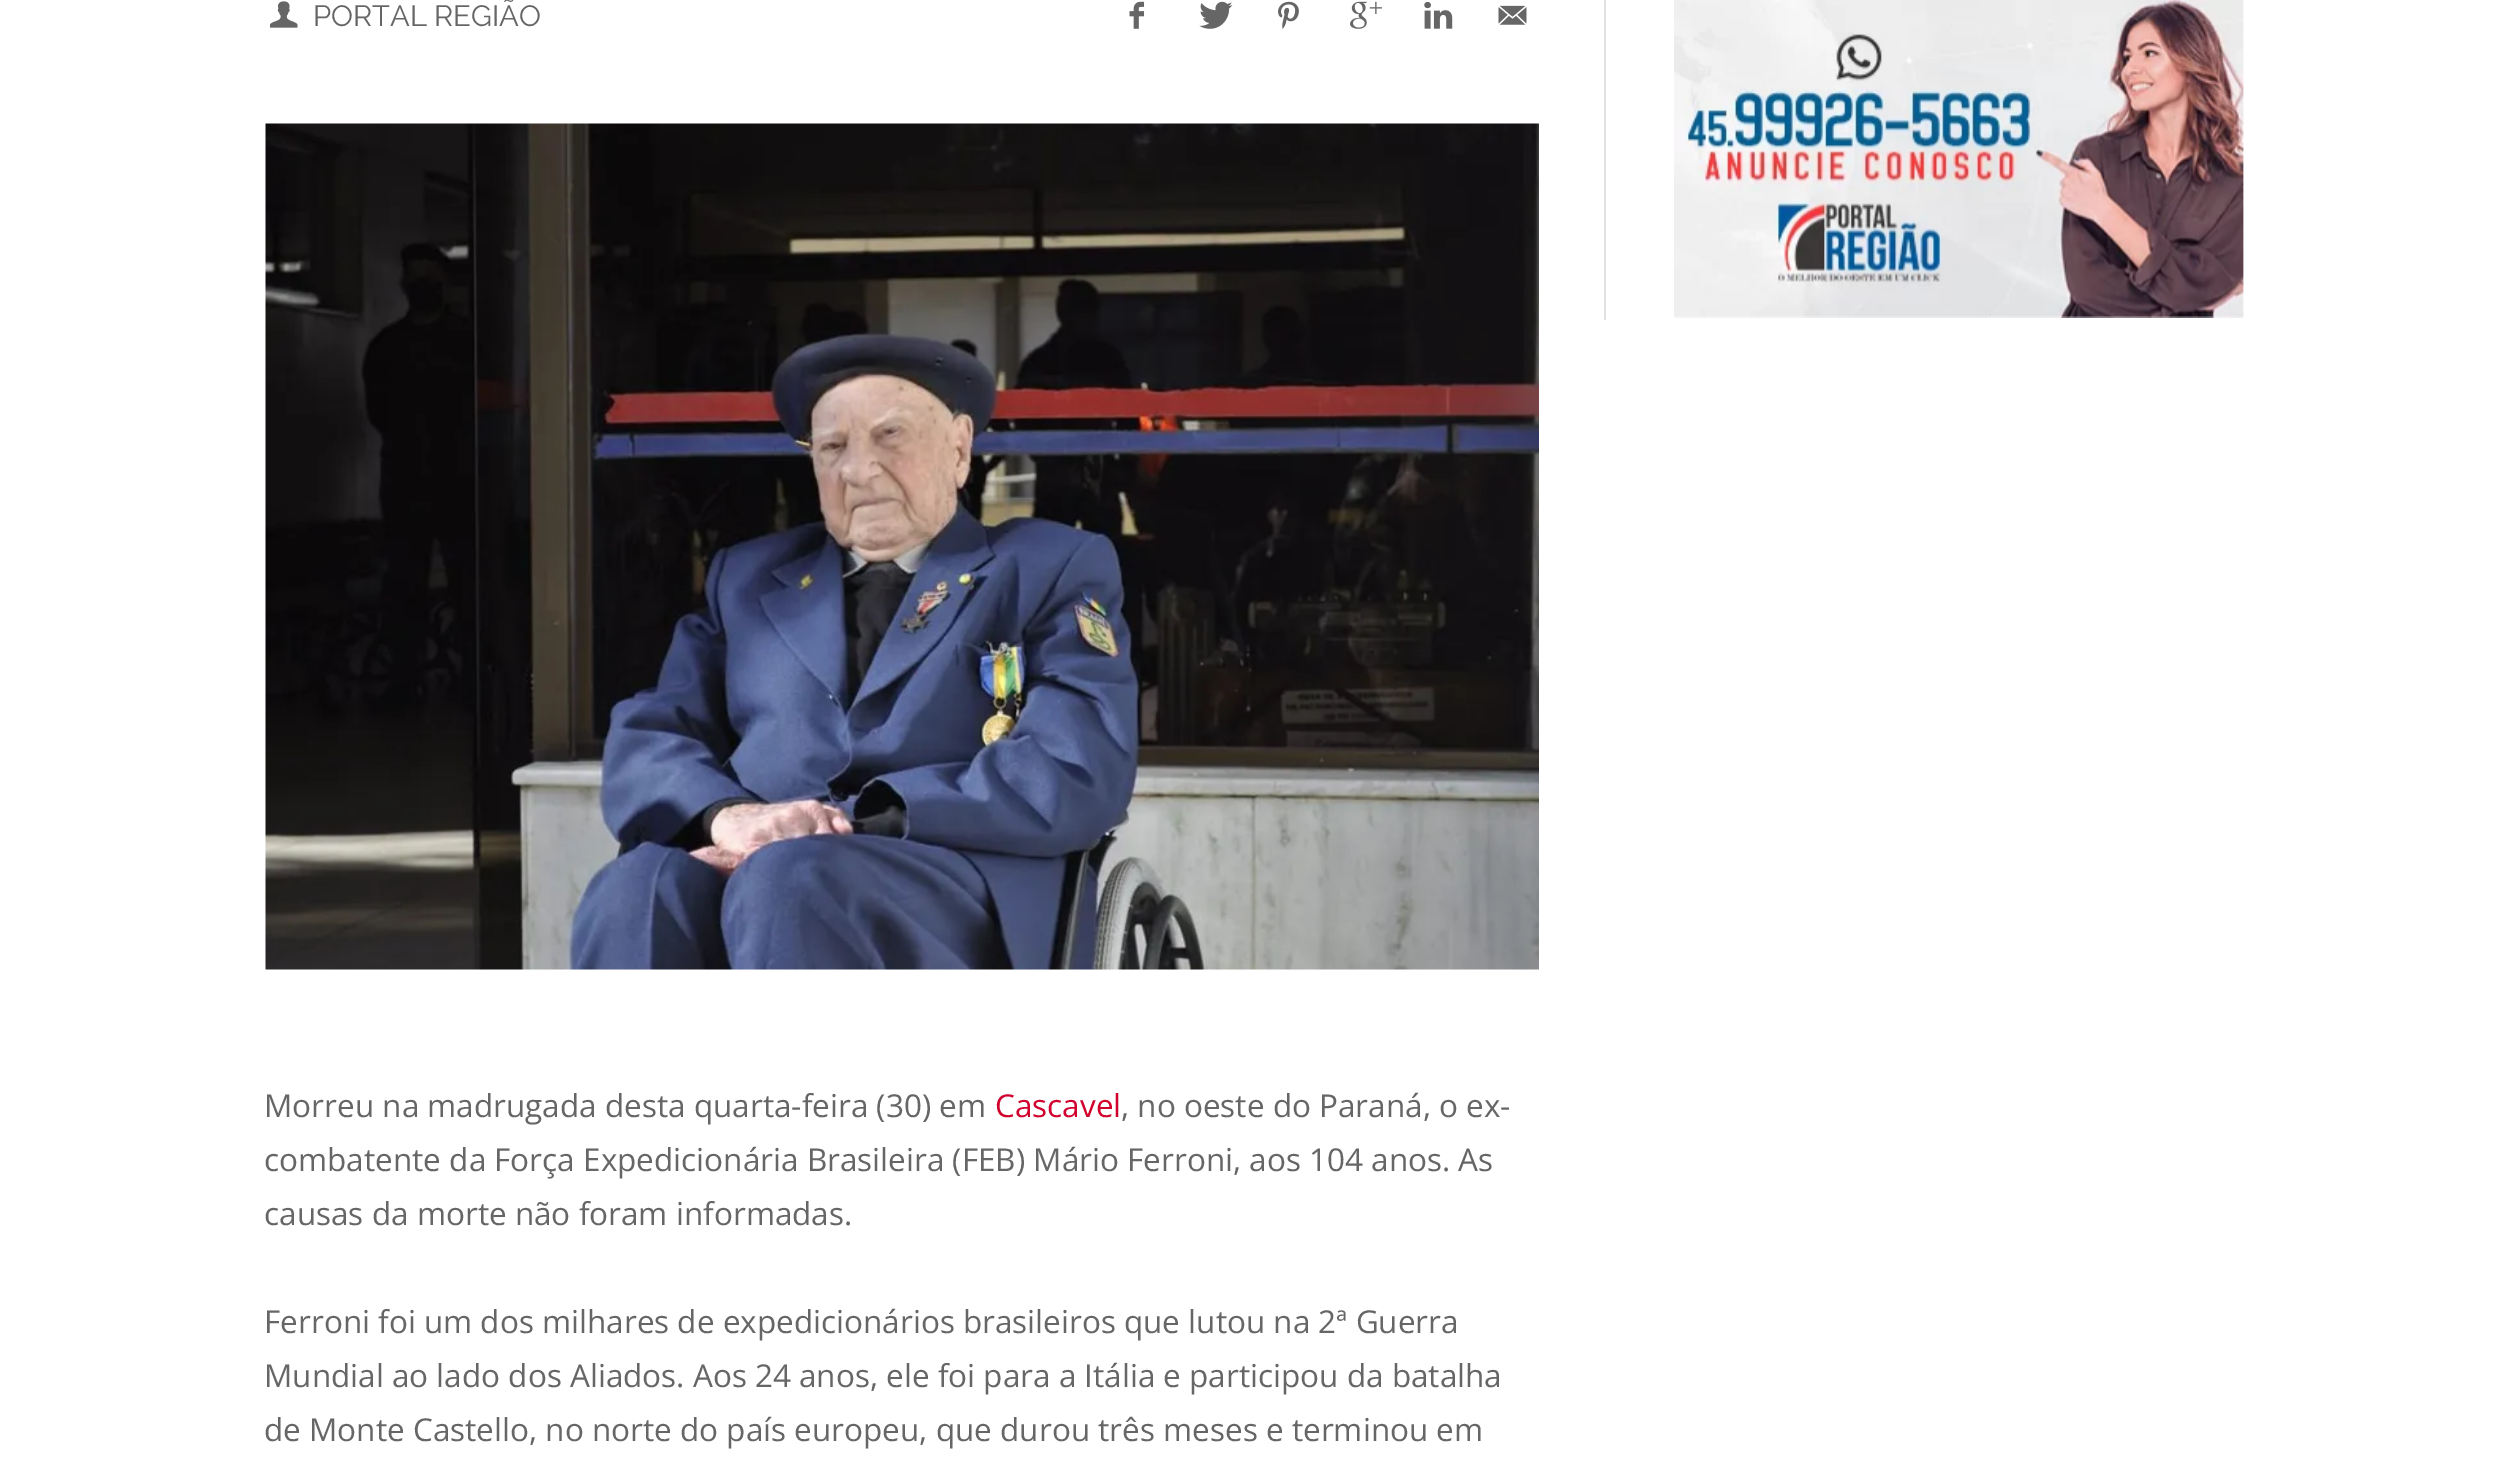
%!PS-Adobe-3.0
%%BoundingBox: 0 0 2508 1464
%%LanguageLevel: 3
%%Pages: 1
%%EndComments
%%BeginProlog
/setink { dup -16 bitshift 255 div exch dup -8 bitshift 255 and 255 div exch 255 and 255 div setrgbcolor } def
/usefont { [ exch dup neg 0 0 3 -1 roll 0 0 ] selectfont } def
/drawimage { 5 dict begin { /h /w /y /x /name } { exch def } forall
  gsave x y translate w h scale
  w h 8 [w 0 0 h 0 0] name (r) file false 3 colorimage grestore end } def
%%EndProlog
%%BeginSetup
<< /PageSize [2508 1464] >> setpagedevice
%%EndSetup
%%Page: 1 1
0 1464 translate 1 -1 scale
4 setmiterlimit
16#FFFFFF setink
0 0 2508 1464 rectfill
(img1.raw) 270 1 28 27 drawimage
/Raleway-Regular 29.25 usefont
16#666666 setink
313 26 moveto (PORTAL REGIÃO) show
(img2.raw) 1129 1 16 28 drawimage
(img3.raw) 1199 1 34 28 drawimage
(img4.raw) 1278 1 21 28 drawimage
(img5.raw) 1350 1 32 28 drawimage
(img6.raw) 1424 1 29 28 drawimage
(img7.raw) 1498 5 29 20 drawimage
(img8.raw) 265 123 1274 847 drawimage
/OpenSans-Regular 31.5 usefont
264 1117 moveto (Morreu na madrugada desta quarta-feira \(30\) em) show
16#D1002D setink
995 1117 moveto (Cascavel) show
16#666666 setink
[
    [(, no oeste do Paraná, o ex-) 1121 1117]
    [(combatente da Força Expedicionária Brasileira \(FEB\) Mário Ferroni, aos 104 anos. As) 264 1171]
    [(causas da morte não foram informadas.) 264 1225]
    [(Ferroni foi um dos milhares de expedicionários brasileiros que lutou na 2ª Guerra) 264 1333]
    [(Mundial ao lado dos Aliados. Aos 24 anos, ele foi para a Itália e participou da batalha) 264 1387]
    [(de Monte Castello, no norte do país europeu, que durou três meses e terminou em) 264 1441]
] { aload pop moveto show } forall
16#E1E1E1 setink
1604 -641 moveto 1604 320 lineto 2309 320 lineto 1606 320 lineto 1606 -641 lineto closepath fill
(img9.raw) 1674 0 570 318 drawimage
showpage
%%EOF
